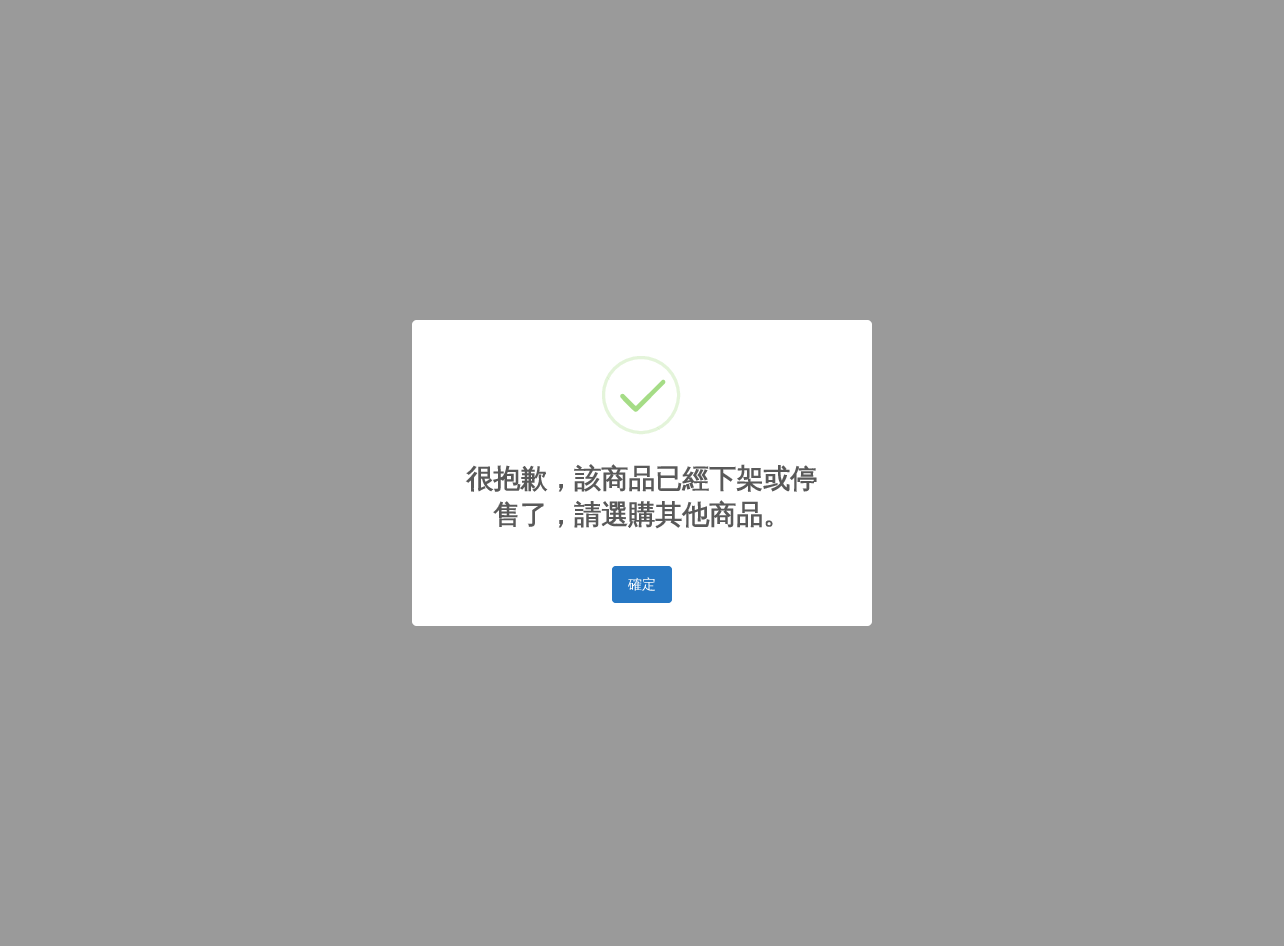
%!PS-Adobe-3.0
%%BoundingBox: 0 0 1284 946
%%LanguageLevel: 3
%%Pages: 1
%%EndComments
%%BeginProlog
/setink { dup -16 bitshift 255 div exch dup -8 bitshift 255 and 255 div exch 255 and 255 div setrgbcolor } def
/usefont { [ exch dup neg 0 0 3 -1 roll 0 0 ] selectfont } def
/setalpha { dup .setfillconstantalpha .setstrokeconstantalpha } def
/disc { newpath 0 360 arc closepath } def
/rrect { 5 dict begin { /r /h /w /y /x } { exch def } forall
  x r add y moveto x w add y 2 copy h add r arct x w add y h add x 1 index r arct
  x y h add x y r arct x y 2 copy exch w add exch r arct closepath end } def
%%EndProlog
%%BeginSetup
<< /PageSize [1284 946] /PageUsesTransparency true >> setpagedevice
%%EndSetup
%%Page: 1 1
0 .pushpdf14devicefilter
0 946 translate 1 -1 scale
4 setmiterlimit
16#9A9A9A setink
0 0 1284 946 rectfill
16#FFFFFF setink
412 320 460 306 5 rrect fill
16#A5DC86 setink
3 setlinewidth
642 395 37.5 disc stroke
16#FFFFFF setink
592 369 moveto 668 445 lineto 647 466 613 466 592 445 curveto 571 424 571 390 592 369 curveto closepath fill
595 365 moveto 616 344 650 344 671 365 curveto 692 386 692 420 671 441 curveto closepath fill
602 380 moveto 606 376 lineto 663 433 lineto 659 438 lineto closepath fill
16#A5DC86 setink
624 394.5 moveto 635 405.5 lineto 636 406.5 639 408.5 637 410.5 curveto 636.5 411 636 411.5 635 411.5 curveto 633.5 411 624.5 401.5 623 400 curveto 620.5 397 lineto 619.5 395 622.5 393 624 394.5 curveto closepath fill
634.5 407.5 moveto 662.5 380 lineto 664 379 666 381.5 665 383 curveto 637.5 411 lineto 636 411.5 lineto 634.5 411 633 409 634.5 407.5 curveto closepath fill
0.3 setalpha
641 395 37.5 disc stroke
/WenQuanYiZenHei-Bold 27 usefont
1 setalpha
16#595959 setink
466 488 moveto (很抱歉，該商品已經下架或停) show
493 524 moveto (售了，請選購其他商品。) show
16#2778C4 setink
612 566 60 37 4 rrect fill
/WenQuanYiZenHei-Medium 14 usefont
16#FFFFFF setink
628 589 moveto (確定) show
.poppdf14devicefilter showpage
%%EOF
